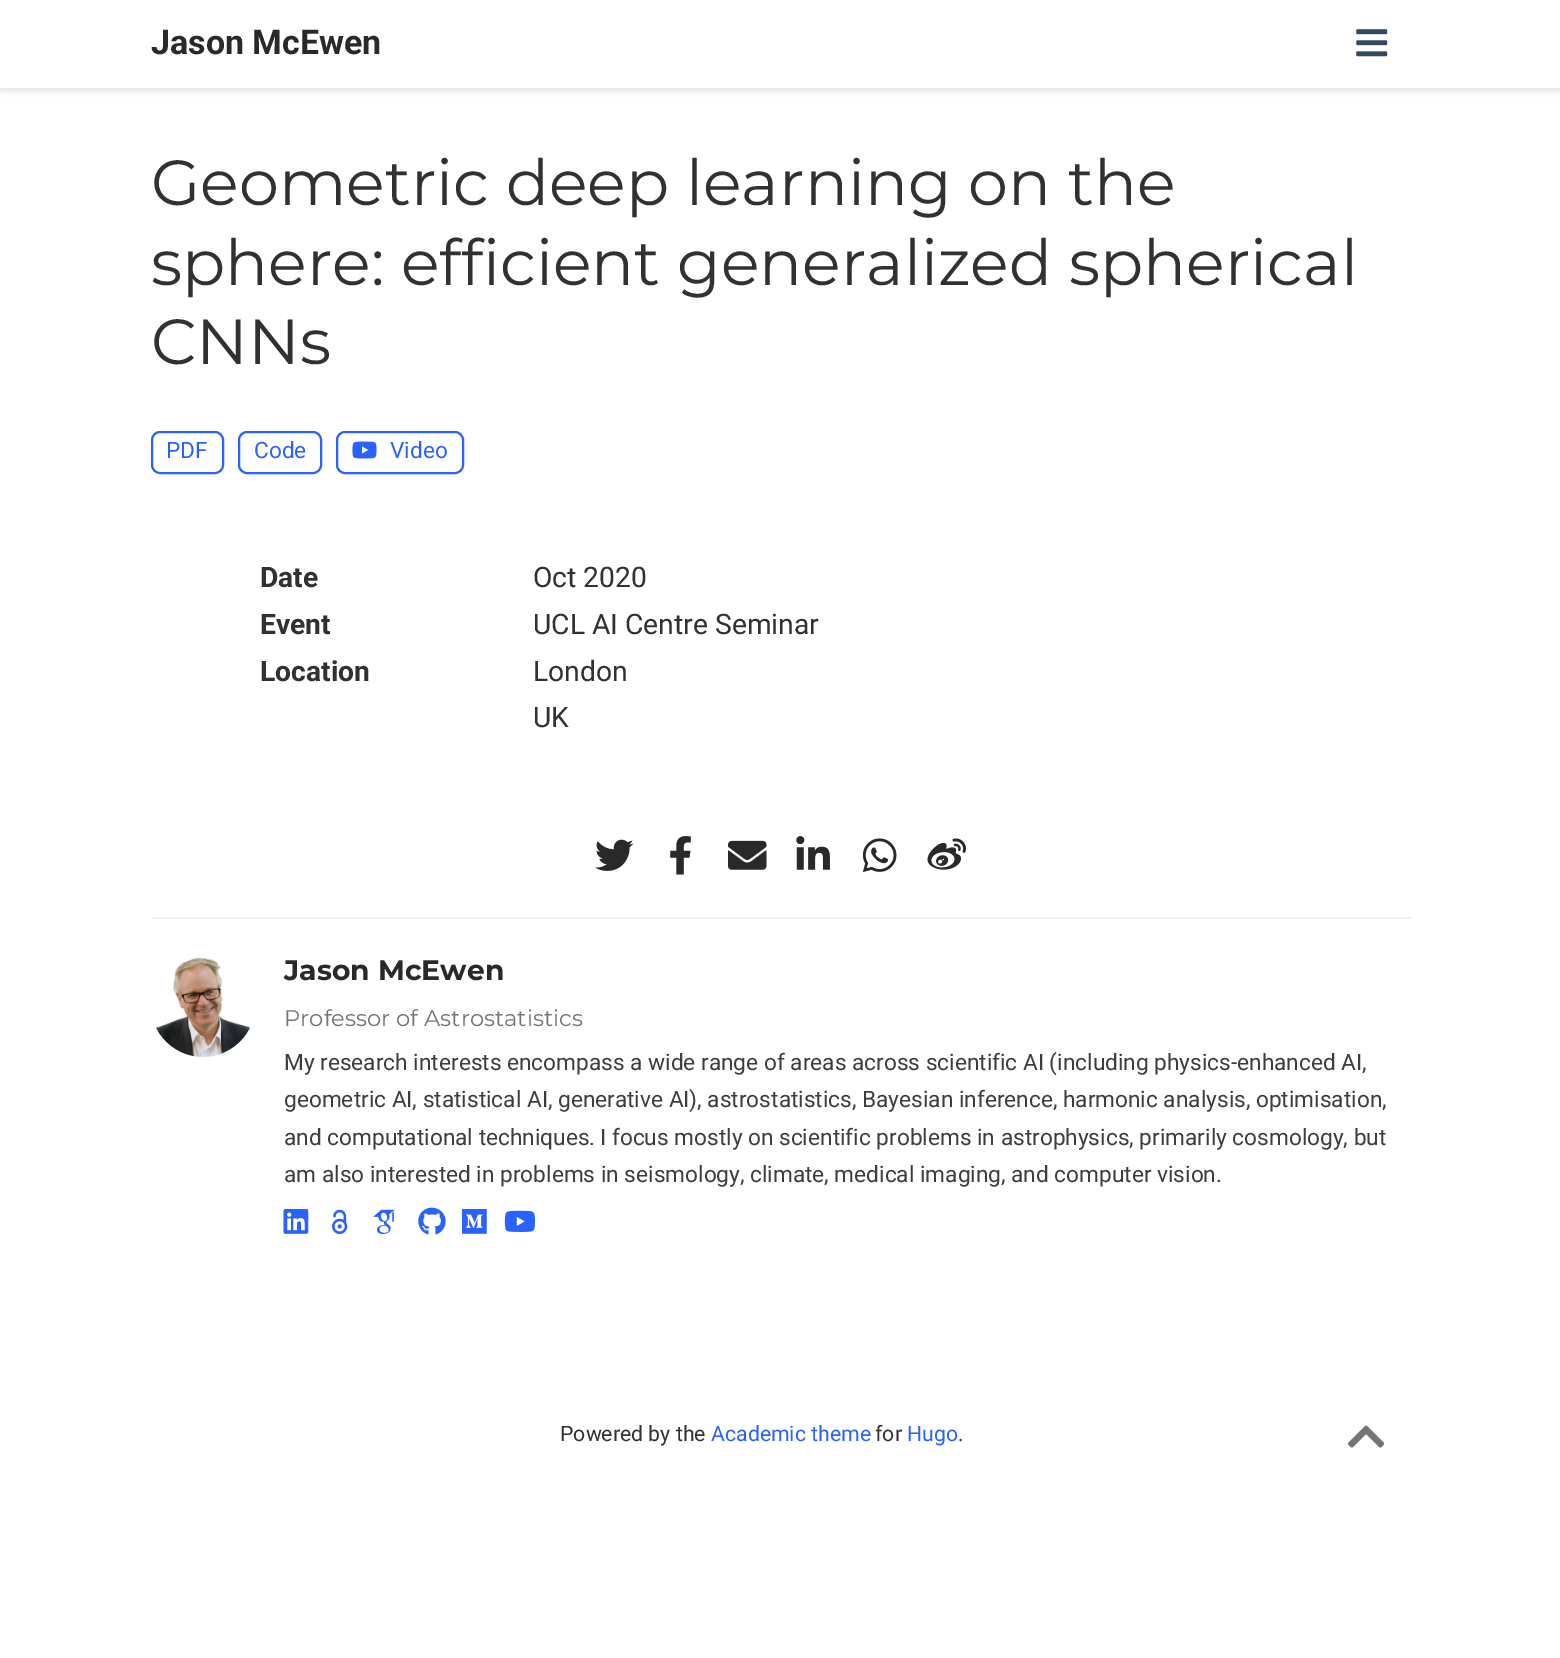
%!PS-Adobe-3.0
%%BoundingBox: 0 0 1560 1658
%%LanguageLevel: 3
%%Pages: 1
%%EndComments
%%BeginProlog
/setink { dup -16 bitshift 255 div exch dup -8 bitshift 255 and 255 div exch 255 and 255 div setrgbcolor } def
/usefont { [ exch dup neg 0 0 3 -1 roll 0 0 ] selectfont } def
/setalpha { dup .setfillconstantalpha .setstrokeconstantalpha } def
/rrect { 5 dict begin { /r /h /w /y /x } { exch def } forall
  x r add y moveto x w add y 2 copy h add r arct x w add y h add x 1 index r arct
  x y h add x y r arct x y 2 copy exch w add exch r arct closepath end } def
/softshadow { 12 dict begin { /a /b /q /h /w /y /x } { exch def } forall gsave /was 0 def
  9 -2 -9 { dup b mul 4 div /e exch def 1 sub .425 mul 2.718 exch exp 1 add a .99 .min exch div /now exch def
    1 1 now sub 1 was sub div sub setalpha /was now def
    w h .min e 2 mul add 0 gt { x e sub y e sub w e 2 mul add h e 2 mul add
      q e add b .6 mul add w h .min 2 div e add .min 0 .max rrect fill } if } for grestore end } def
/drawimage { 5 dict begin { /h /w /y /x /name } { exch def } forall
  gsave x y translate w h scale
  w h 8 [w 0 0 h 0 0] name (r) file false 3 colorimage grestore end } def
%%EndProlog
%%BeginSetup
<< /PageSize [1560 1658] /PageUsesTransparency true >> setpagedevice
%%EndSetup
%%Page: 1 1
0 .pushpdf14devicefilter
0 1658 translate 1 -1 scale
4 setmiterlimit
16#FFFFFF setink
0 0 1560 1658 rectfill
16#000000 setink
0 4 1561 87 0 3.5 0.11 softshadow
16#FFFFFF setink
0 0 1560 88 rectfill
/Roboto-Bold 34 usefont
16#292929 setink
151 54 moveto (Jason McEwen) show
(img1.raw) 1356 29 32 28 drawimage
/Montserrat-Regular 63.7 usefont
16#313131 setink
[
    [(Geometric deep learning on the) 151 205]
    [(sphere: efficient generalized spherical) 151 285]
    [(CNNs) 151 364]
] { aload pop moveto show } forall
16#2962FF setink
2 setlinewidth
152 432 71 41 8 rrect stroke
/Roboto-Regular 22.65 usefont
166 458 moveto (PDF) show
239 432 82 41 8 rrect stroke
254 458 moveto (Code) show
337 432 126 41 8 rrect stroke
(img2.raw) 352 441 25 18 drawimage
390 458 moveto (Video) show
/Roboto-Bold 28.25 usefont
16#313131 setink
260 587 moveto (Date) show
/Roboto-Regular 28.25 usefont
533 587 moveto (Oct 2020) show
/Roboto-Bold 28.25 usefont
260 634 moveto (Event) show
/Roboto-Regular 28.25 usefont
533 634 moveto (UCL AI Centre Seminar) show
/Roboto-Bold 28.25 usefont
260 681 moveto (Location) show
/Roboto-Regular 28.25 usefont
533 681 moveto (London) show
533 727 moveto (UK) show
(img3.raw) 595 839 39 32 drawimage
(img4.raw) 670 836 21 39 drawimage
(img5.raw) 728 840 39 30 drawimage
(img6.raw) 796 836 34 34 drawimage
(img7.raw) 862 838 35 35 drawimage
(img8.raw) 927 838 39 32 drawimage
16#F2F2F2 setink
151 917 1260 2 rectfill
(img9.raw) 156 957 95 100 drawimage
/Montserrat-Bold 28.25 usefont
16#292929 setink
284 980 moveto (Jason McEwen) show
/Montserrat-Regular 22.65 usefont
16#757575 setink
284 1026 moveto (Professor of Astrostatistics) show
/Roboto-Regular 22.65 usefont
16#3D3D3D setink
[
    [(My research interests encompass a wide range of areas across scientific AI \(including physics-enhanced AI,) 284 1070]
    [(geometric AI, statistical AI, generative AI\), astrostatistics, Bayesian inference, harmonic analysis, optimisation,) 284 1107]
    [(and computational techniques.) 284 1145]
    [(I focus mostly on scientific problems in astrophysics, primarily cosmology, but) 600 1145]
    [(am also interested in problems in seismology, climate, medical imaging, and computer vision.) 284 1182]
] { aload pop moveto show } forall
(img10.raw) 283 1209 26 25 drawimage
(img11.raw) 332 1209 16 25 drawimage
(img12.raw) 373 1209 22 25 drawimage
(img13.raw) 418 1207 28 28 drawimage
(img14.raw) 462 1209 25 25 drawimage
(img15.raw) 504 1210 31 22 drawimage
/Roboto-Regular 21.25 usefont
16#313131 setink
560 1441 moveto (Powered by the) show
16#2962FF setink
711 1441 moveto (Academic theme) show
16#313131 setink
875 1441 moveto (for) show
16#2962FF setink
907 1441 moveto (Hugo) show
16#313131 setink
958 1441 moveto (.) show
(img16.raw) 1348 1425 37 23 drawimage
.poppdf14devicefilter showpage
%%EOF
